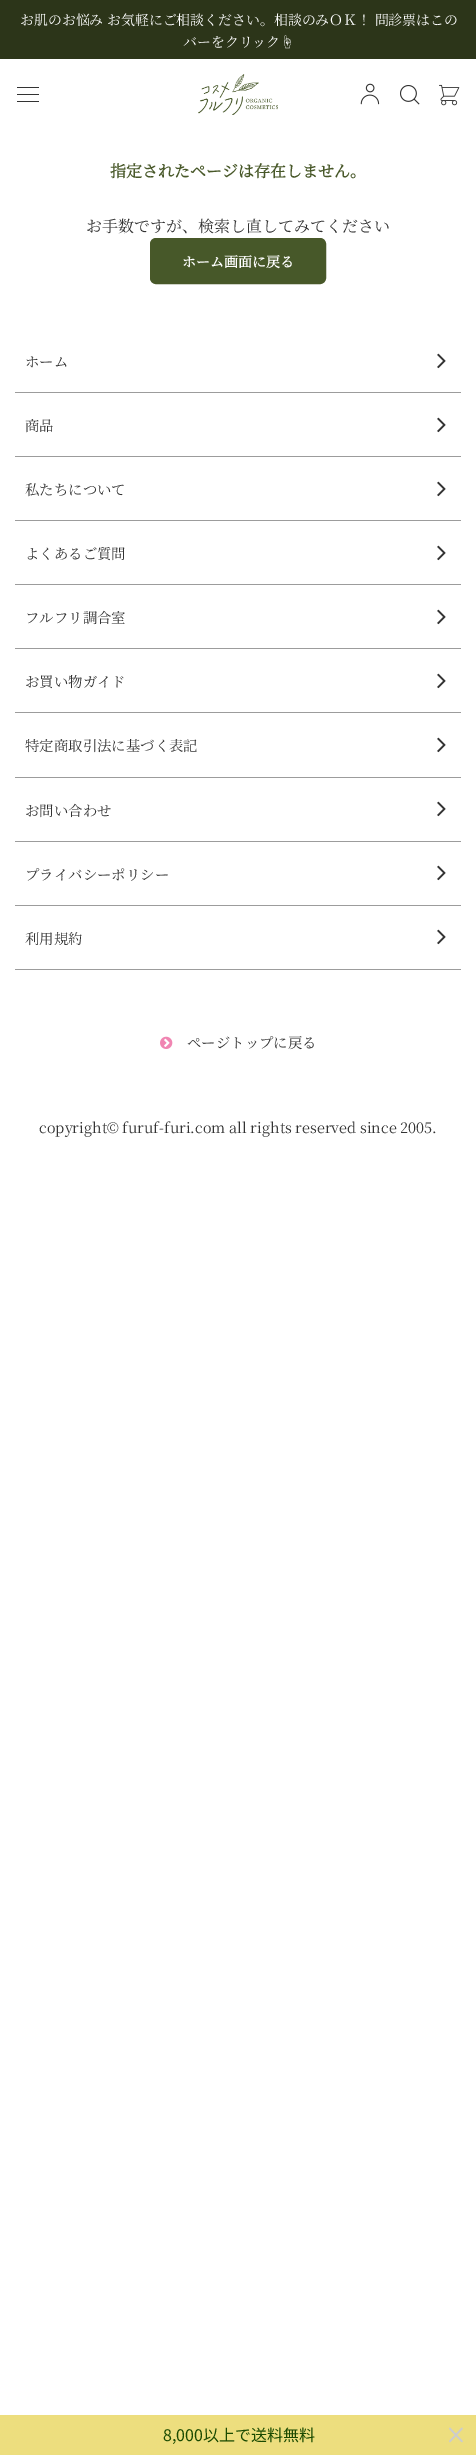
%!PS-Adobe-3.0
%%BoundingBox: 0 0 476 2455
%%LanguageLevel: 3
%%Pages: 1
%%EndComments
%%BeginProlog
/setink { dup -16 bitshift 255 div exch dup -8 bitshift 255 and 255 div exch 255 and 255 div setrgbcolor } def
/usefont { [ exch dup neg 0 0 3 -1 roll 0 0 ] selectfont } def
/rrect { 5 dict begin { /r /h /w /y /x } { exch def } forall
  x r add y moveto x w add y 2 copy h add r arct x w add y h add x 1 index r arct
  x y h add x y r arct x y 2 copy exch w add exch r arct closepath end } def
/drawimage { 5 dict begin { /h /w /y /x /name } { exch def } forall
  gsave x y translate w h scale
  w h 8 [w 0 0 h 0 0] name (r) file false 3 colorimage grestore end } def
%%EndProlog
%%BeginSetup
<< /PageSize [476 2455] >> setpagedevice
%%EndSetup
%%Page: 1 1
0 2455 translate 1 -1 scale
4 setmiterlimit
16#FFFFFF setink
0 0 476 2455 rectfill
16#2C3519 setink
0 0 476 59 rectfill
/NotoSerifJP-ExtraLight 13.9 usefont
16#FFFFFF setink
20 25 moveto (お肌のお悩み お気軽にご相談ください。相談のみＯＫ！ 問診票はこの) show
183 47 moveto (バーをクリック☝) show
[
    [17 87 22 1 16#333333]
    [17 94 22 1 16#333333]
    [17 101 22 1 16#333333]
] { aload pop setink rectfill } forall
(img1.raw) 198 74 80 41 drawimage
(img2.raw) 360 83 20 22 drawimage
(img3.raw) 400 85 20 20 drawimage
(img4.raw) 439 84 21 22 drawimage
16#EDDE7E setink
0 2415 476 40 rectfill
/NotoSansJP-Thin 16 usefont
16#1B4B01 setink
163 2441 moveto (8,000以上で送料無料) show
(img5.raw) 449 2427 14 16 drawimage
/NotoSerifJP-Bold 16 usefont
16#485829 setink
110 177 moveto (指定されたページは存在しません。) show
/NotoSerifJP-ExtraLight 16 usefont
16#333333 setink
86 232 moveto (お手数ですが、検索し直してみてください) show
16#475829 setink
151 239 174 44 5 rrect gsave fill grestore
16#485829 setink
2 setlinewidth
stroke
/NotoSerifJP-Bold 14 usefont
16#FFFFFF setink
182 267 moveto (ホーム画面に戻る) show
16#9C9C9C setink
15 392 446 1 rectfill
/NotoSerifJP-ExtraLight 14.4 usefont
16#333333 setink
25 367 moveto (ホーム) show
(img6.raw) 437 353 9 16 drawimage
16#9C9C9C setink
15 456 446 1 rectfill
16#333333 setink
25 431 moveto (商品) show
(img6.raw) 437 417 9 16 drawimage
16#9C9C9C setink
15 520 446 1 rectfill
16#333333 setink
25 495 moveto (私たちについて) show
(img6.raw) 437 481 9 16 drawimage
16#9C9C9C setink
15 584 446 1 rectfill
16#333333 setink
25 559 moveto (よくあるご質問) show
(img6.raw) 437 545 9 16 drawimage
16#9C9C9C setink
15 648 446 1 rectfill
16#333333 setink
25 623 moveto (フルフリ調合室) show
(img6.raw) 437 609 9 16 drawimage
16#9C9C9C setink
15 712 446 1 rectfill
16#333333 setink
25 687 moveto (お買い物ガイド) show
(img6.raw) 437 673 9 16 drawimage
16#9C9C9C setink
15 777 446 1 rectfill
16#333333 setink
25 751 moveto (特定商取引法に基づく表記) show
(img6.raw) 437 737 9 16 drawimage
16#9C9C9C setink
15 841 446 1 rectfill
16#333333 setink
25 816 moveto (お問い合わせ) show
(img6.raw) 437 801 9 16 drawimage
16#9C9C9C setink
15 905 446 1 rectfill
16#333333 setink
25 880 moveto (プライバシーポリシー) show
(img6.raw) 437 865 9 16 drawimage
16#9C9C9C setink
15 969 446 1 rectfill
16#333333 setink
25 944 moveto (利用規約) show
(img6.raw) 437 929 9 16 drawimage
(img7.raw) 160 1036 13 13 drawimage
187 1048 moveto (ページトップに戻る) show
39 1133 moveto (copyright© furuf-furi.com all rights reserved since 2005.) show
showpage
%%EOF
